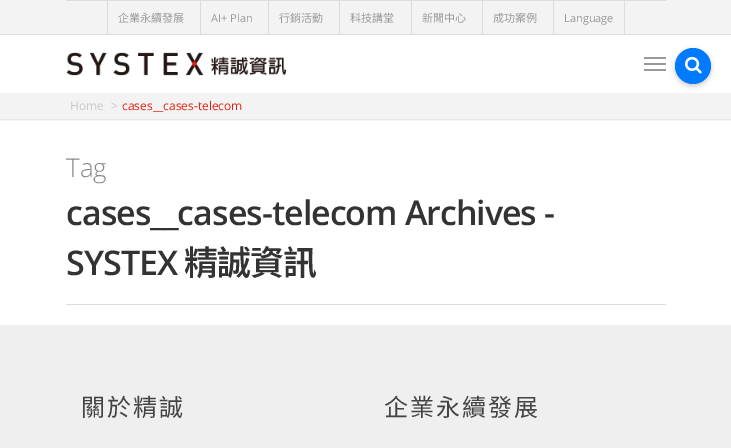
%!PS-Adobe-3.0
%%BoundingBox: 0 0 731 448
%%LanguageLevel: 3
%%Pages: 1
%%EndComments
%%BeginProlog
/setink { dup -16 bitshift 255 div exch dup -8 bitshift 255 and 255 div exch 255 and 255 div setrgbcolor } def
/usefont { [ exch dup neg 0 0 3 -1 roll 0 0 ] selectfont } def
/setalpha { dup .setfillconstantalpha .setstrokeconstantalpha } def
/disc { newpath 0 360 arc closepath } def
/rrect { 5 dict begin { /r /h /w /y /x } { exch def } forall
  x r add y moveto x w add y 2 copy h add r arct x w add y h add x 1 index r arct
  x y h add x y r arct x y 2 copy exch w add exch r arct closepath end } def
/softshadow { 12 dict begin { /a /b /q /h /w /y /x } { exch def } forall gsave /was 0 def
  9 -2 -9 { dup b mul 4 div /e exch def 1 sub .425 mul 2.718 exch exp 1 add a .99 .min exch div /now exch def
    1 1 now sub 1 was sub div sub setalpha /was now def
    w h .min e 2 mul add 0 gt { x e sub y e sub w e 2 mul add h e 2 mul add
      q e add b .6 mul add w h .min 2 div e add .min 0 .max rrect fill } if } for grestore end } def
/drawimage { 5 dict begin { /h /w /y /x /name } { exch def } forall
  gsave x y translate w h scale
  w h 8 [w 0 0 h 0 0] name (r) file false 3 colorimage grestore end } def
%%EndProlog
%%BeginSetup
<< /PageSize [731 448] /PageUsesTransparency true >> setpagedevice
%%EndSetup
%%Page: 1 1
0 .pushpdf14devicefilter
0 448 translate 1 -1 scale
4 setmiterlimit
16#FFFFFF setink
0 0 731 448 rectfill
gsave
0 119 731 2 rectclip
16#000000 setink
0 35 731 84 0 1.5 0.22 softshadow
grestore
[
    [0 0 731 34 16#F3F3F3]
    [0 34 731 1 16#DBDBDB]
    [66 0 600 1 16#DDDDDD]
    [107 1 1 33 16#DBDBDB]
] { aload pop setink rectfill } forall
/NotoSansTC-Regular 11 usefont
16#999999 setink
118 22 moveto (企業永續發展) show
16#DBDBDB setink
200 1 1 33 rectfill
/OpenSans-Regular 11 usefont
16#999999 setink
211 22 moveto (AI+ Plan) show
16#DBDBDB setink
268 1 1 33 rectfill
/NotoSansTC-Regular 11 usefont
16#999999 setink
279 22 moveto (行銷活動) show
16#DBDBDB setink
339 1 1 33 rectfill
16#999999 setink
350 22 moveto (科技講堂) show
16#DBDBDB setink
411 1 1 33 rectfill
16#999999 setink
422 22 moveto (新聞中心) show
16#DBDBDB setink
482 1 1 33 rectfill
16#999999 setink
493 22 moveto (成功案例) show
16#DDDDDD setink
624 1 1 33 rectfill
16#DBDBDB setink
553 1 1 33 rectfill
/OpenSans-Regular 11 usefont
16#999999 setink
564 22 moveto (Language) show
(img1.raw) 66 52 220 24 drawimage
[
    [644 57 22 2 16#999999]
    [644 69 22 2 16#999999]
    [644 63 22 2 16#999999]
    [0 93 731 26 16#F3F3F3]
] { aload pop setink rectfill } forall
/OpenSans-Regular 12 usefont
16#C9C9C9 setink
70 110 moveto (Home) show
111 110 moveto (>) show
16#E62310 setink
122 110 moveto (cases__cases-telecom) show
16#000000 setink
675 50 36 36 18 2.5 0.2 softshadow
16#007BFF setink
693 66 18 disc fill
(img2.raw) 685 56 17 18 drawimage
16#DDDDDD setink
66 304 600 1 rectfill
/OpenSans-Light 26 usefont
16#888888 setink
66 177 moveto (Tag) show
/OpenSans-SemiBold 34 usefont
16#333333 setink
66 225 moveto -1 0 (cases__cases-telecom Archives -) ashow
66 275 moveto -1 0 (SYSTEX) ashow
/NotoSansTC-SemiBold 34 usefont
184 275 moveto -1 0 (精誠資訊) ashow
16#EFEFEF setink
0 325 731 123 rectfill
/NotoSansTC-Regular 24 usefont
16#444444 setink
81 416 moveto 2 0 (關於精誠) ashow
384 416 moveto 2 0 (企業永續發展) ashow
.poppdf14devicefilter showpage
%%EOF
